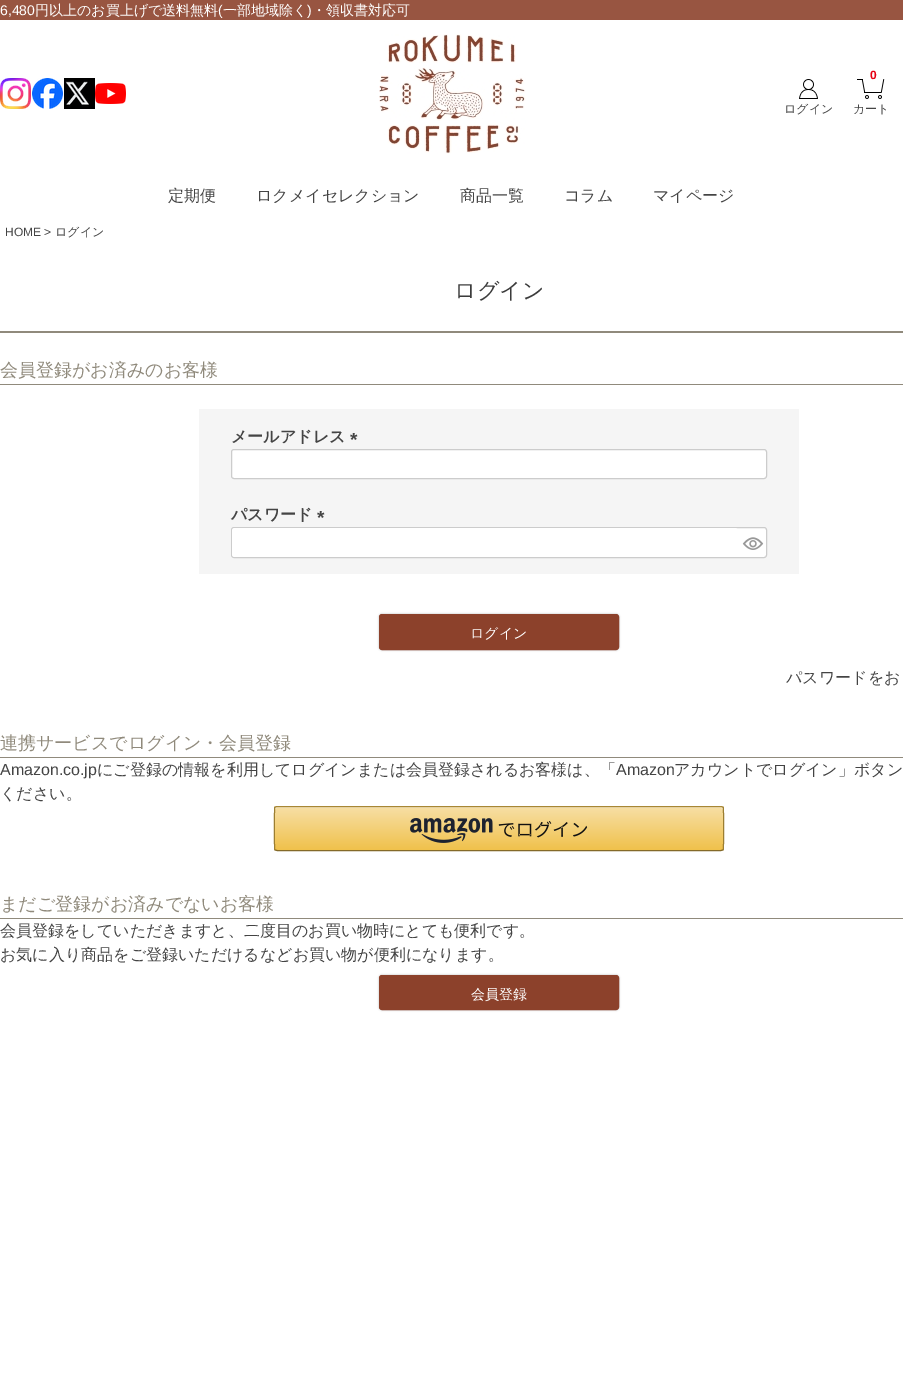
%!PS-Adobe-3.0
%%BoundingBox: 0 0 903 1397
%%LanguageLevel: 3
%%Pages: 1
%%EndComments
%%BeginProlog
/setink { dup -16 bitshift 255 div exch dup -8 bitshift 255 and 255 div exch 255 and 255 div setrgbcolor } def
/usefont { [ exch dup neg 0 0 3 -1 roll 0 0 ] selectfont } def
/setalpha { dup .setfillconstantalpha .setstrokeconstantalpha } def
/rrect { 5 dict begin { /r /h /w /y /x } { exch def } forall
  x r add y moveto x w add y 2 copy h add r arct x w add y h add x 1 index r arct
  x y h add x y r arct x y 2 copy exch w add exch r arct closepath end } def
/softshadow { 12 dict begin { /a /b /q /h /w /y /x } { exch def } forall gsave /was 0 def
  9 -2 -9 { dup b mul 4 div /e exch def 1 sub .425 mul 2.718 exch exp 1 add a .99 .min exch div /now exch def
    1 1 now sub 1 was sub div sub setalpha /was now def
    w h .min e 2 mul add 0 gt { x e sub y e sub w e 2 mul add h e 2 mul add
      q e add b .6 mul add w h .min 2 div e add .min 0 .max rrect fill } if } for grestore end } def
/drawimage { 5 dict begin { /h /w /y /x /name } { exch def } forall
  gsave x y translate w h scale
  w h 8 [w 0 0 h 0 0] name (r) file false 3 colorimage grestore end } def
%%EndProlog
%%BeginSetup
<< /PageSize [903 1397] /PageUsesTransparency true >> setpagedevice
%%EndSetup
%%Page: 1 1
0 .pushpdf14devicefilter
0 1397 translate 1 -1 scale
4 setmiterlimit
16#FFFFFF setink
0 0 903 1397 rectfill
16#985541 setink
0 0 903 20 rectfill
/LiberationSans-Regular 14 usefont
16#FFFFFF setink
0 15 moveto (6,480) show
/WenQuanYiZenHei-Medium 14 usefont
35 15 moveto (円以上のお買上げで送料無料) show
/LiberationSans-Regular 14 usefont
218 15 moveto (\() show
/WenQuanYiZenHei-Medium 14 usefont
223 15 moveto (一部地域除く) show
/LiberationSans-Regular 14 usefont
307 15 moveto (\)) show
/WenQuanYiZenHei-Medium 14 usefont
312 15 moveto (・領収書対応可) show
(img1.raw) 0 78 31 31 drawimage
(img2.raw) 32 78 31 31 drawimage
(img3.raw) 64 78 31 31 drawimage
(img4.raw) 95 83 31 21 drawimage
(img5.raw) 379 34 147 120 drawimage
(img6.raw) 799 79 19 20 drawimage
/WenQuanYiZenHei-Medium 12 usefont
16#444444 setink
784 113 moveto (ログイン) show
(img7.raw) 857 79 28 20 drawimage
/LiberationSans-Bold 12 usefont
16#E60012 setink
870 79 moveto (0) show
/WenQuanYiZenHei-Medium 12 usefont
16#444444 setink
853 113 moveto (カート) show
/WenQuanYiZenHei-Medium 16 usefont
[
    [(定期便) 168 201]
    [(ロクメイセレクション) 256 201]
    [(商品一覧) 460 201]
    [(コラム) 564 201]
    [(マイページ) 653 201]
] { aload pop moveto show } forall
/LiberationSans-Regular 12 usefont
5 236 moveto (HOME >) show
/WenQuanYiZenHei-Medium 12 usefont
55 236 moveto (ログイン) show
16#908A7C setink
0 331 903 2 rectfill
/WenQuanYiZenHei-Medium 22 usefont
16#3C3C3C setink
454 298 moveto (ログイン) show
16#908A7C setink
0 384 903 1 rectfill
/WenQuanYiZenHei-Medium 18 usefont
0 376 moveto (会員登録がお済みのお客様) show
16#F5F5F5 setink
199 409 600 165 rectfill
/WenQuanYiZenHei-Bold 16 usefont
16#444444 setink
231 442 moveto (メールアドレス) show
/LiberationSans-Bold 19 usefont
350 446 moveto (*) show
16#FFFFFF setink
231.5 449.5 535 29 2.5 rrect gsave fill grestore
16#CCCCCC setink
stroke
/WenQuanYiZenHei-Bold 16 usefont
16#444444 setink
231 520 moveto (パスワード) show
/LiberationSans-Bold 19 usefont
317 524 moveto (*) show
16#FFFFFF setink
231.5 527.5 535 30 2.5 rrect gsave fill grestore
16#CCCCCC setink
stroke
16#FFFFFF setink
232 528 506 29 3 rrect fill
(img8.raw) 742 537 22 13 drawimage
16#B2B2B2 setink
379 614 240 36 3 1 1 softshadow
16#8C412B setink
379.5 614.5 239 35 2.5 rrect gsave fill grestore
stroke
/WenQuanYiZenHei-Medium 14 usefont
16#FFFFFF setink
470 638 moveto (ログイン) show
/WenQuanYiZenHei-Medium 16 usefont
16#444444 setink
786 683 moveto (パスワードをお) show
16#908A7C setink
0 757 903 1 rectfill
/WenQuanYiZenHei-Medium 18 usefont
0 749 moveto (連携サービスでログイン・会員登録) show
/LiberationSans-Regular 16 usefont
16#444444 setink
0 775 moveto (Amazon.co.jp) show
/WenQuanYiZenHei-Medium 16 usefont
97 775 moveto (にご登録の情報を利用してログインまたは会員登録されるお客様は、「) show
/LiberationSans-Regular 16 usefont
616 775 moveto (Amazon) show
/WenQuanYiZenHei-Medium 16 usefont
674 775 moveto (アカウントでログイン」ボタン) show
0 799 moveto (ください。) show
gsave
274 806 450 45 3 rrect clip newpath
gsave 274 807 moveto 724 807 lineto 724 850 lineto 274 850 lineto closepath clip newpath
<< /ShadingType 2 /ColorSpace /DeviceRGB /Coords [499 807 499 850] /Extend [true true] /Function << /FunctionType 2 /Domain [0 1] /C0 [0.969 0.875 0.647] /C1 [0.941 0.757 0.294] /N 1 >> >> shfill grestore
grestore
16#FAECC8 setink
277 808 moveto 721 808 lineto 722 808 723 809 723 810 curveto 723 809 723 807 721 807 curveto 277 807 lineto 275 807 275 809 275 810 curveto 275 809 276 808 277 808 curveto closepath fill
16#A88734 setink
275 807 moveto 277 806.5 lineto 721 806.5 lineto 723 807 lineto stroke
16#9C7E31 setink
723 807 moveto 724 808.5 724 848.5 723 850 curveto stroke
16#846A29 setink
723 850 moveto 721 850.5 lineto 277 850.5 lineto 275 850 lineto stroke
16#9C7E31 setink
275 850 moveto 274 848.5 274 808.5 275 807 curveto stroke
(img9.raw) 410 818 178 25 drawimage
16#908A7C setink
0 918 903 1 rectfill
/WenQuanYiZenHei-Medium 18 usefont
0 910 moveto (まだご登録がお済みでないお客様) show
/WenQuanYiZenHei-Medium 16 usefont
16#444444 setink
0 936 moveto (会員登録をしていただきますと、二度目のお買い物時にとても便利です。) show
0 960 moveto (お気に入り商品をご登録いただけるなどお買い物が便利になります。) show
16#B2B2B2 setink
379 975 240 35 3 1 1 softshadow
16#8C412B setink
379.5 975.5 239 34 2.5 rrect gsave fill grestore
stroke
/WenQuanYiZenHei-Medium 14 usefont
16#FFFFFF setink
471 999 moveto (会員登録) show
.poppdf14devicefilter showpage
%%EOF
